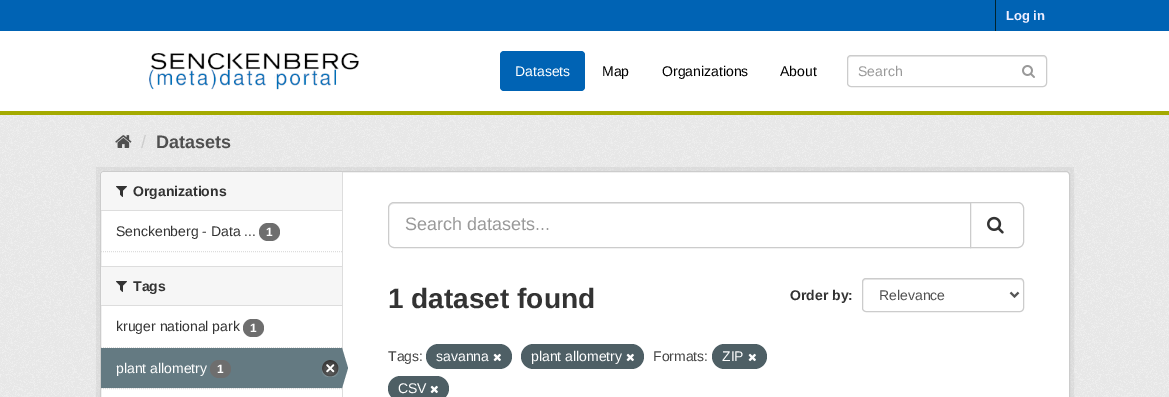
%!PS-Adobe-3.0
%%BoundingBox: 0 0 1169 397
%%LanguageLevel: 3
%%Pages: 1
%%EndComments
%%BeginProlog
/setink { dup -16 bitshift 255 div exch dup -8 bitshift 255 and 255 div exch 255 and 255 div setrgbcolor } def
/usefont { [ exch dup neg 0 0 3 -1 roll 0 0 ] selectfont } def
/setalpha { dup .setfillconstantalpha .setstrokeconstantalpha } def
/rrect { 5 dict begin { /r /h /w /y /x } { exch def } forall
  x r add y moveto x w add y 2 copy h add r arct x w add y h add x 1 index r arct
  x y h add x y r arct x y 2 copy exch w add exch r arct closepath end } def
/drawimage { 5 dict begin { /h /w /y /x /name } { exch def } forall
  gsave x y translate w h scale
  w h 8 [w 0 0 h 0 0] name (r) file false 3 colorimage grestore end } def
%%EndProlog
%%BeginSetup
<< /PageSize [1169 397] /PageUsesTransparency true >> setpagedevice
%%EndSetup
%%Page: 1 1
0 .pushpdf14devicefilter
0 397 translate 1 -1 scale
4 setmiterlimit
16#FFFFFF setink
0 0 1169 397 rectfill
16#0063B4 setink
0 0 1169 31 rectfill
16#00232E setink
995 0 1 31 rectfill
/LiberationSans-Bold 13 usefont
16#EEEEFF setink
1006 20 moveto (Log in) show
16#A4AA00 setink
0 111 1169 4 rectfill
(img1.raw) 149 53 210 37 drawimage
16#0063B4 setink
500 51 85 40 4 rrect fill
/LiberationSans-Regular 14 usefont
16#FFFFFF setink
515 76 moveto (Datasets) show
16#000000 setink
[
    [(Map) 602 76]
    [(Organizations) 662 76]
    [(About) 780 76]
] { aload pop moveto show } forall
16#ECECEC setink
851 57 moveto 1043 57 lineto 1045 57 1046 58 1046 60 curveto 1046 58 1045 56 1043 56 curveto 851 56 lineto 849 56 848 58 848 60 curveto 848 58 849 57 851 57 curveto closepath fill
16#CCCCCC setink
847.5 55.5 199 31 3.5 rrect stroke
16#999999 setink
858 76 moveto (Search) show
(img2.raw) 1022 65 13 13 drawimage
16#EEEEEE setink
0 115 1169 282 rectfill
(img3.raw) 0 115 1169 282 drawimage
(img4.raw) 115 135 17 13 drawimage
/LiberationSans-Regular 18 usefont
16#CCCCCC setink
141 148 moveto (/) show
/LiberationSans-Bold 18 usefont
16#505050 setink
156 148 moveto (Datasets) show
0.05 setalpha
16#000000 setink
4 setlinewidth
98 169 974 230 rectstroke
1 setalpha
16#FFFFFF setink
100.5 171.5 969 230 3.5 rrect gsave fill grestore
16#CCCCCC setink
1 setlinewidth
stroke
16#F6F6F6 setink
104 172 moveto 342 172 lineto 342 211 lineto 101 211 lineto 101 175 lineto 101 173.5 102.5 172 104 172 curveto closepath fill
16#DDDDDD setink
101 210 241 1 rectfill
(img5.raw) 116 186 11 11 drawimage
/LiberationSans-Bold 14 usefont
16#333333 setink
133 196 moveto (Organizations) show
/LiberationSans-Regular 14 usefont
116 236 moveto (Senckenberg - Data ...) show
16#6E6E6E setink
259 223 21 18 9 rrect fill
/LiberationSans-Bold 12 usefont
16#FFFFFF setink
266 236 moveto (1) show
16#DDDDDD setink
[1 1] 0 setdash
101 251.5 moveto 342 251.5 lineto stroke
[
    [101 267 241 38 16#F6F6F6]
    [101 266 241 1 16#DDDDDD]
    [101 305 241 1 16#DDDDDD]
] { aload pop setink rectfill } forall
(img5.raw) 116 281 11 11 drawimage
/LiberationSans-Bold 14 usefont
16#333333 setink
133 291 moveto (Tags) show
16#DDDDDD setink
101 347.5 moveto 342 347.5 lineto stroke
/LiberationSans-Regular 14 usefont
16#333333 setink
116 331 moveto (kruger national park) show
16#6E6E6E setink
243 319 21 18 9 rrect fill
/LiberationSans-Bold 12 usefont
16#FFFFFF setink
250 332 moveto (1) show
16#F6F6F6 setink
102 388 239 1 rectfill
16#DDDDDD setink
101 388.5 moveto 342 388.5 lineto stroke
16#647A82 setink
101 348 241 40 rectfill
/LiberationSans-Regular 14 usefont
16#FFFFFF setink
116 373 moveto (plant allometry) show
16#6E6E6E setink
210 360 21 18 9 rrect fill
/LiberationSans-Bold 12 usefont
16#FFFFFF setink
217 373 moveto (1) show
(img6.raw) 322 360 17 17 drawimage
16#DDDDDD setink
342 172 1 225 rectfill
16#647A82 setink
342 388 moveto 342 348 lineto 348 368 lineto closepath fill
16#ECECEC setink
394 204 moveto 970 204 lineto 970 203 lineto 394 203 lineto 391 203 389 206 389 209 curveto 389 206 391 204 394 204 curveto closepath fill
16#CCCCCC setink
[] 0 setdash
394 202.5 moveto 970.5 202.5 lineto 970.5 247.5 lineto 394 247.5 lineto 391 247.5 388.5 245 388.5 242 curveto 388.5 208 lineto 388.5 205 391 202.5 394 202.5 curveto closepath stroke
/LiberationSans-Regular 18 usefont
16#999999 setink
405 230 moveto (Search datasets...) show
16#FFFFFF setink
970.5 202.5 moveto 1018 202.5 lineto 1021 202.5 1023.5 205 1023.5 208 curveto 1023.5 242 lineto 1023.5 245 1021 247.5 1018 247.5 curveto 970.5 247.5 lineto closepath gsave fill grestore
16#CCCCCC setink
stroke
(img7.raw) 987 216 17 18 drawimage
/LiberationSans-Bold 28 usefont
16#333333 setink
388 308 moveto (1 dataset found) show
/LiberationSans-Bold 14 usefont
790 300 moveto (Order by:) show
16#ECECEC setink
866 280 moveto 1020 280 lineto 1022 280 1023 281 1023 283 curveto 1023 281 1022 279 1020 279 curveto 865 279 lineto 863 279 863 281 863 283 curveto 863 281 864 280 866 280 curveto closepath fill
16#CCCCCC setink
862.5 278.5 161 33 3.5 rrect stroke
16#555555 setink
2 setlinewidth
1010.5 292.5 moveto 1014.5 296.5 lineto 1018.5 292.5 lineto stroke
/LiberationSans-Regular 14 usefont
16#505050 setink
879 300 moveto (Relevance) show
16#444444 setink
388 361 moveto (Tags:) show
16#4E5F65 setink
426 344 86 25 12.5 rrect fill
16#FFFFFF setink
436 361 moveto (savanna) show
(img8.raw) 493 353 8 9 drawimage
16#4E5F65 setink
521 344 123 25 12.5 rrect fill
16#FFFFFF setink
531 361 moveto (plant allometry) show
(img8.raw) 626 353 8 9 drawimage
16#444444 setink
653 361 moveto (Formats:) show
16#4E5F65 setink
712 344 55 25 12.5 rrect fill
16#FFFFFF setink
722 361 moveto (ZIP) show
(img8.raw) 748 353 8 9 drawimage
16#4E5F65 setink
388 376 61 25 12.5 rrect fill
16#FFFFFF setink
398 393 moveto (CSV) show
(img8.raw) 430 385 8 9 drawimage
.poppdf14devicefilter showpage
%%EOF
